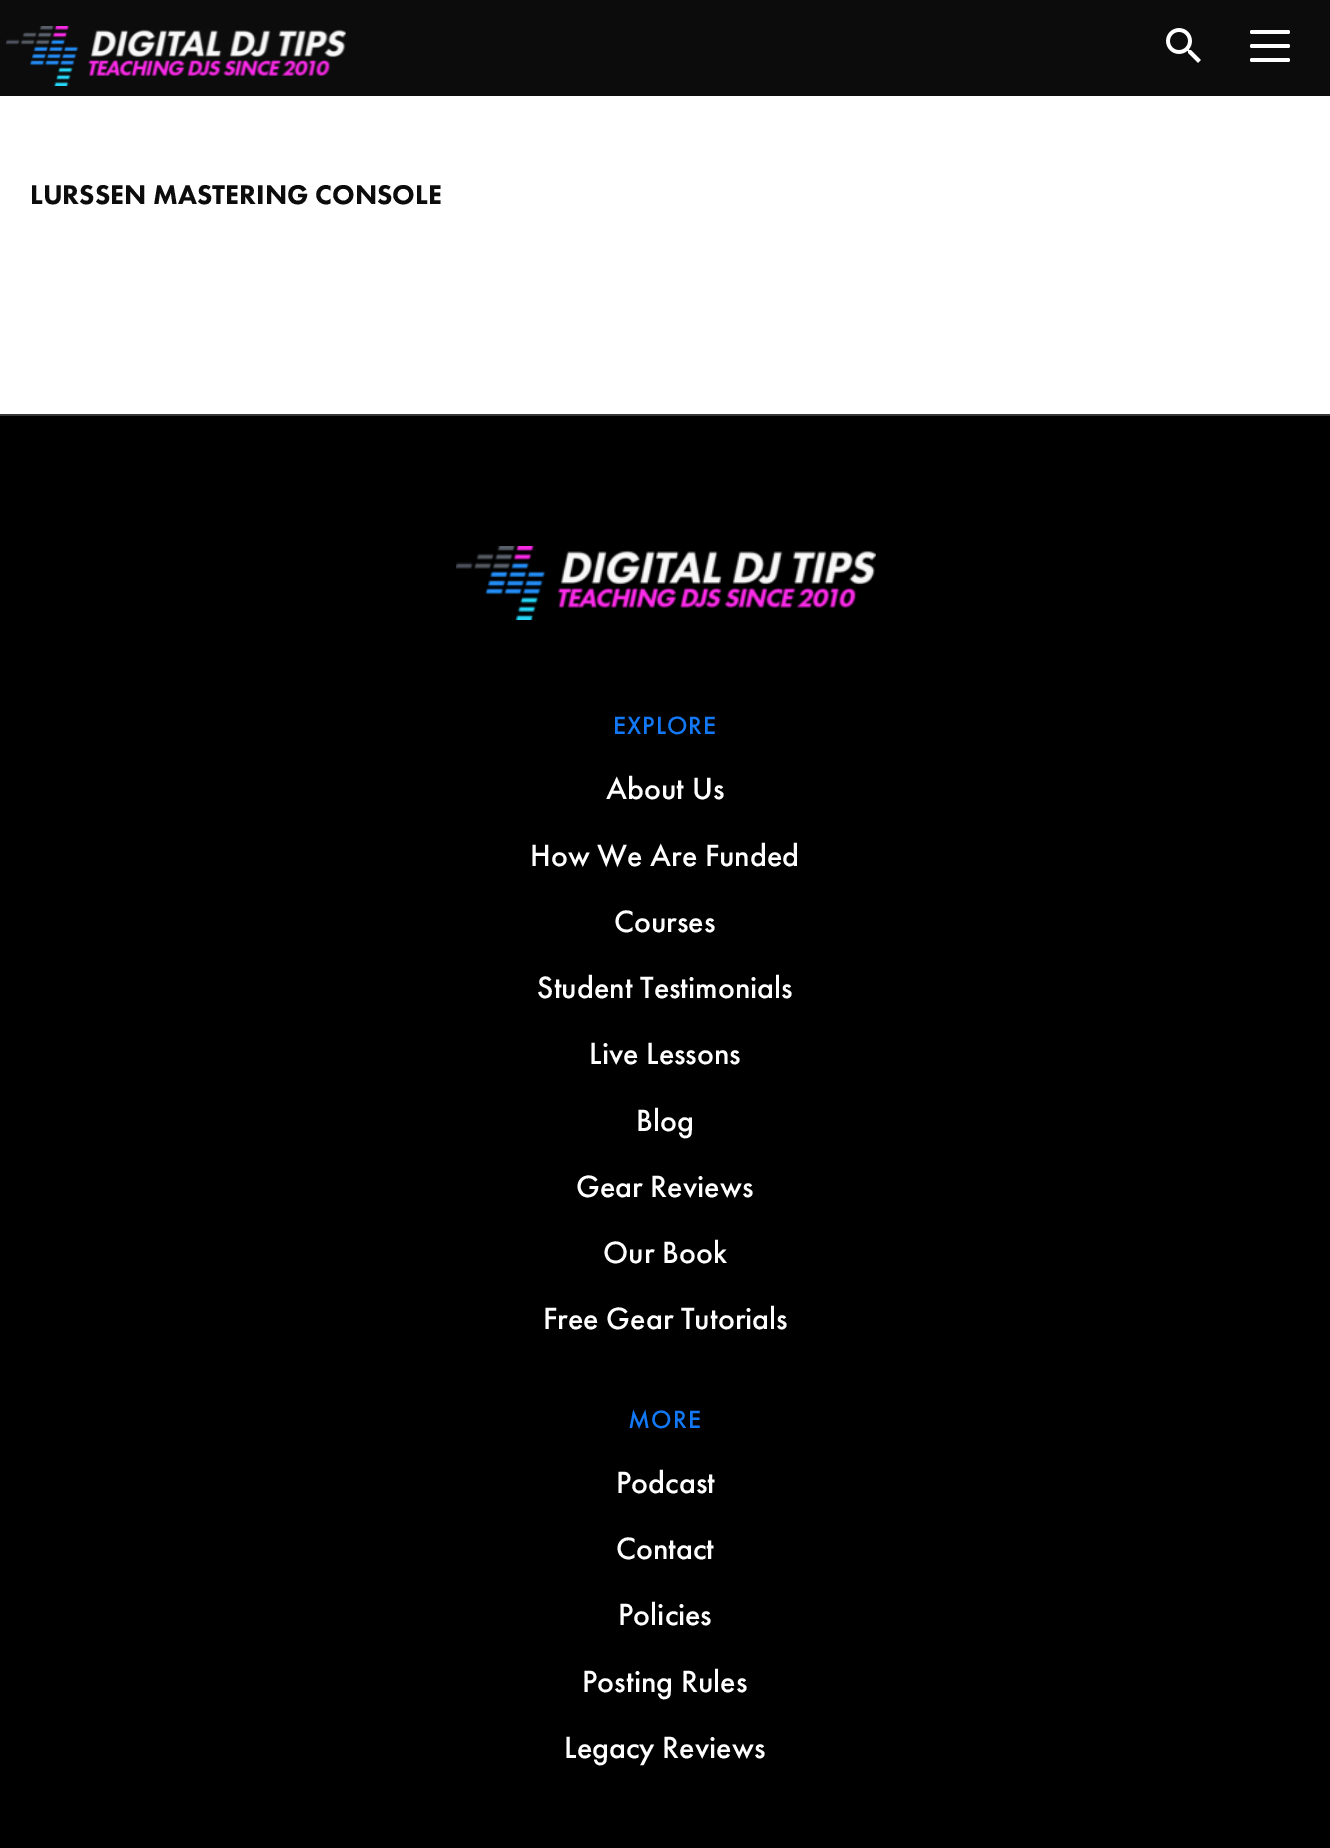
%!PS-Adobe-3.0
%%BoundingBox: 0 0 1330 1848
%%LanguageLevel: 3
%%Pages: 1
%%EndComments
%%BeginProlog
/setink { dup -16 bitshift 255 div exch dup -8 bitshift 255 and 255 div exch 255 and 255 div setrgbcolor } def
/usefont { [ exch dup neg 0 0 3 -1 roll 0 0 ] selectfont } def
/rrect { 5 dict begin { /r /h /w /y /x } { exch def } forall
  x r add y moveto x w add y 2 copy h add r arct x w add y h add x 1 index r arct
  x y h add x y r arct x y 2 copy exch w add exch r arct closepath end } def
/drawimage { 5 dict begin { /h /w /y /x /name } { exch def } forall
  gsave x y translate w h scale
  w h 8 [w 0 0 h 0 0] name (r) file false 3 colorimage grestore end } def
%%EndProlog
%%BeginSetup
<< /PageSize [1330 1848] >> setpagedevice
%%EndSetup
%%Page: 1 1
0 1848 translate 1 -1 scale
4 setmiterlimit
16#FFFFFF setink
0 0 1330 1848 rectfill
16#0C0C0C setink
0 0 1330 96 rectfill
(img1.raw) 6 26 340 60 drawimage
(img2.raw) 1166 28 35 35 drawimage
16#FFFFFF setink
1250 30 40 4 2 rrect fill
1250 44 40 4 2 rrect fill
1250 58 40 4 2 rrect fill
/FuturaPT-Black 28 usefont
16#0C0C0C setink
30 204 moveto (LURSSEN MASTERING CONSOLE) show
16#000000 setink
0 416 1330 1432 rectfill
16#383838 setink
0 414 1330 2 rectfill
(img3.raw) 456 546 420 74 drawimage
/FuturaPT-Medium 26 usefont
16#1278F5 setink
613 734 moveto 1 0 (EXPLORE) ashow
/FuturaPT-Medium 32 usefont
16#FFFFFF setink
[
    [(About Us) 606 799]
    [(How We Are Funded) 530 866]
    [(Courses) 614 932]
    [(Student Testimonials) 537 998]
    [(Live Lessons) 589 1064]
    [(Blog) 636 1131]
    [(Gear Reviews) 576 1197]
    [(Our Book) 603 1263]
    [(Free Gear Tutorials) 543 1329]
] { aload pop moveto show } forall
/FuturaPT-Medium 26 usefont
16#1278F5 setink
628 1428 moveto 1 0 (MORE) ashow
/FuturaPT-Medium 32 usefont
16#FFFFFF setink
[
    [(Podcast) 616 1493]
    [(Contact) 616 1559]
    [(Policies) 618 1625]
    [(Posting Rules) 582 1692]
    [(Legacy Reviews) 564 1758]
] { aload pop moveto show } forall
showpage
%%EOF
